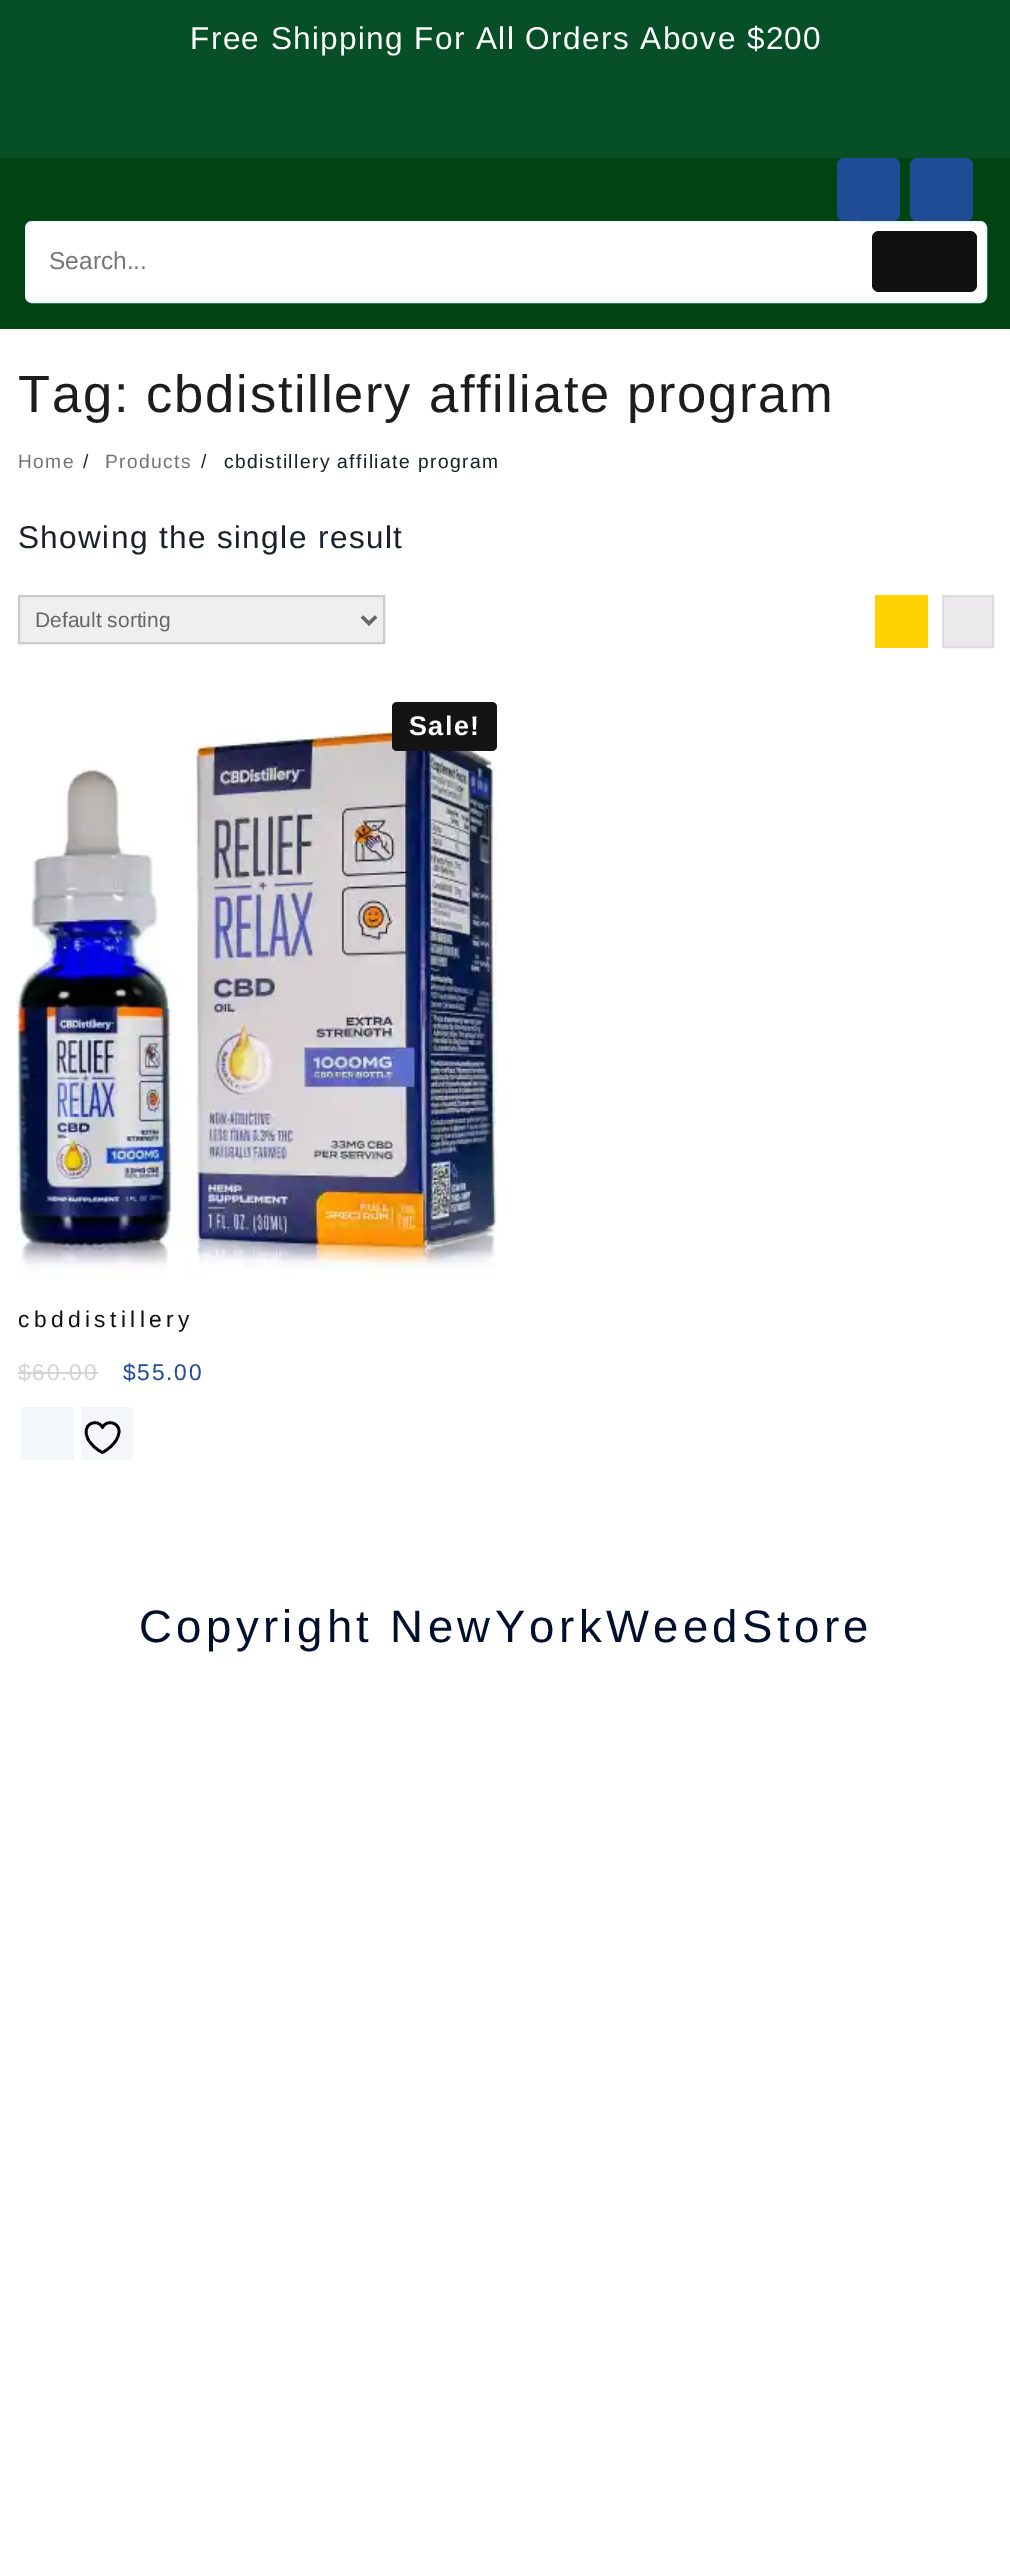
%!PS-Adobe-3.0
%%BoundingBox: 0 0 1010 2571
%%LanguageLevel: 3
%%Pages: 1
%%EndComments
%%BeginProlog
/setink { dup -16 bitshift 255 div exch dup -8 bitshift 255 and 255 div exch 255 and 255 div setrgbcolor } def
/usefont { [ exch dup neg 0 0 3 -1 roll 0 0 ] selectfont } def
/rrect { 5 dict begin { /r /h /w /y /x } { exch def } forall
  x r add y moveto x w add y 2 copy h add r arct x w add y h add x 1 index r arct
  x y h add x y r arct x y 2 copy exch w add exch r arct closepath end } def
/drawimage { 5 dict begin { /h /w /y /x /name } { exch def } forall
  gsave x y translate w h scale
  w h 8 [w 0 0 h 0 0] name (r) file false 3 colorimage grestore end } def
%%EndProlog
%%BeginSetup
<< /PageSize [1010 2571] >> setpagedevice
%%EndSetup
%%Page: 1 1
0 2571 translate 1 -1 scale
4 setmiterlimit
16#FFFFFF setink
0 0 1010 2571 rectfill
16#074F26 setink
0 0 1010 158 rectfill
/LiberationSans-Regular 31.5 usefont
16#FFFFFF setink
190 49 moveto 1.4 0 (Free Shipping For All Orders Above $200) ashow
16#024411 setink
0 158 1010 171 rectfill
16#1F4C94 setink
837 158 63 63 7 rrect fill
910 158 63 63 7 rrect fill
16#FFFFFF setink
26 222 960 80 6 rrect gsave fill grestore
16#E7F5FF setink
2 setlinewidth
stroke
16#FFFFFF setink
26 222 837 79 7 rrect fill
/LiberationSans-Regular 24.5 usefont
16#757575 setink
49 269 moveto (Search...) show
16#111111 setink
872 231 105 61 7 rrect fill
/LiberationSans-Regular 52.5 usefont
16#1C1D1E setink
18 412 moveto 1.75 0 (Tag: cbdistillery affiliate program) ashow
/LiberationSans-Regular 19.25 usefont
16#757575 setink
18 468 moveto 1.4 0 (Home) ashow
16#1A202C setink
83 468 moveto 1.4 0 (/) ashow
16#757575 setink
105 468 moveto 1.4 0 (Products) ashow
16#1A202C setink
201 468 moveto 1.4 0 (/) ashow
224 468 moveto 1.4 0 (cbdistillery affiliate program) ashow
/LiberationSans-Regular 31.5 usefont
18 548 moveto 1.4 0 (Showing the single result) ashow
16#EFEFEF setink
19 596 moveto 384 596 lineto 384 643 lineto 19 643 lineto closepath gsave fill grestore
16#CCCCCC setink
stroke
16#666666 setink
3.5 setlinewidth
362 616.5 moveto 369 623.5 lineto 376 616.5 lineto stroke
/LiberationSans-Regular 21 usefont
35 627 moveto (Default sorting) show
16#FFD200 setink
875 595 53 53 rectfill
16#EBE9EB setink
943 596 moveto 993 596 lineto 993 647 lineto 943 647 lineto closepath gsave fill grestore
16#DDDDDD setink
2 setlinewidth
stroke
(img1.raw) 16 723 481 556 drawimage
16#141415 setink
392 702 105 49 5 rrect fill
/LiberationSans-Bold 27 usefont
16#FFFFFF setink
409 735 moveto 1.4 0 (Sale!) ashow
/LiberationSans-Regular 22.75 usefont
16#111111 setink
18 1327 moveto 4.4 0 (cbddistillery) ashow
16#D4D4D4 setink
18 1380 moveto 1.75 0 ($60.00) ashow
18 1372 80 2 rectfill
16#1F4C94 setink
123 1380 moveto 1.75 0 ($55.00) ashow
16#F4F7F9 setink
21 1407 53 53 rectfill
81 1407 52 53 rectfill
16#000000 setink
2.7 setlinewidth
1 setlinecap
1 setlinejoin
119 1431 moveto 119 1422 106 1419.5 102.5 1427.5 curveto 98 1417.5 79.5 1423.5 88.5 1440 curveto 91.5 1445 97 1450 102.5 1452.5 curveto 102.5 1452.5 119 1444 119 1431 curveto closepath stroke
/LiberationSans-Regular 45.5 usefont
16#000F2B setink
139 1642 moveto 4.4 0 (Copyright NewYorkWeedStore) ashow
showpage
%%EOF
